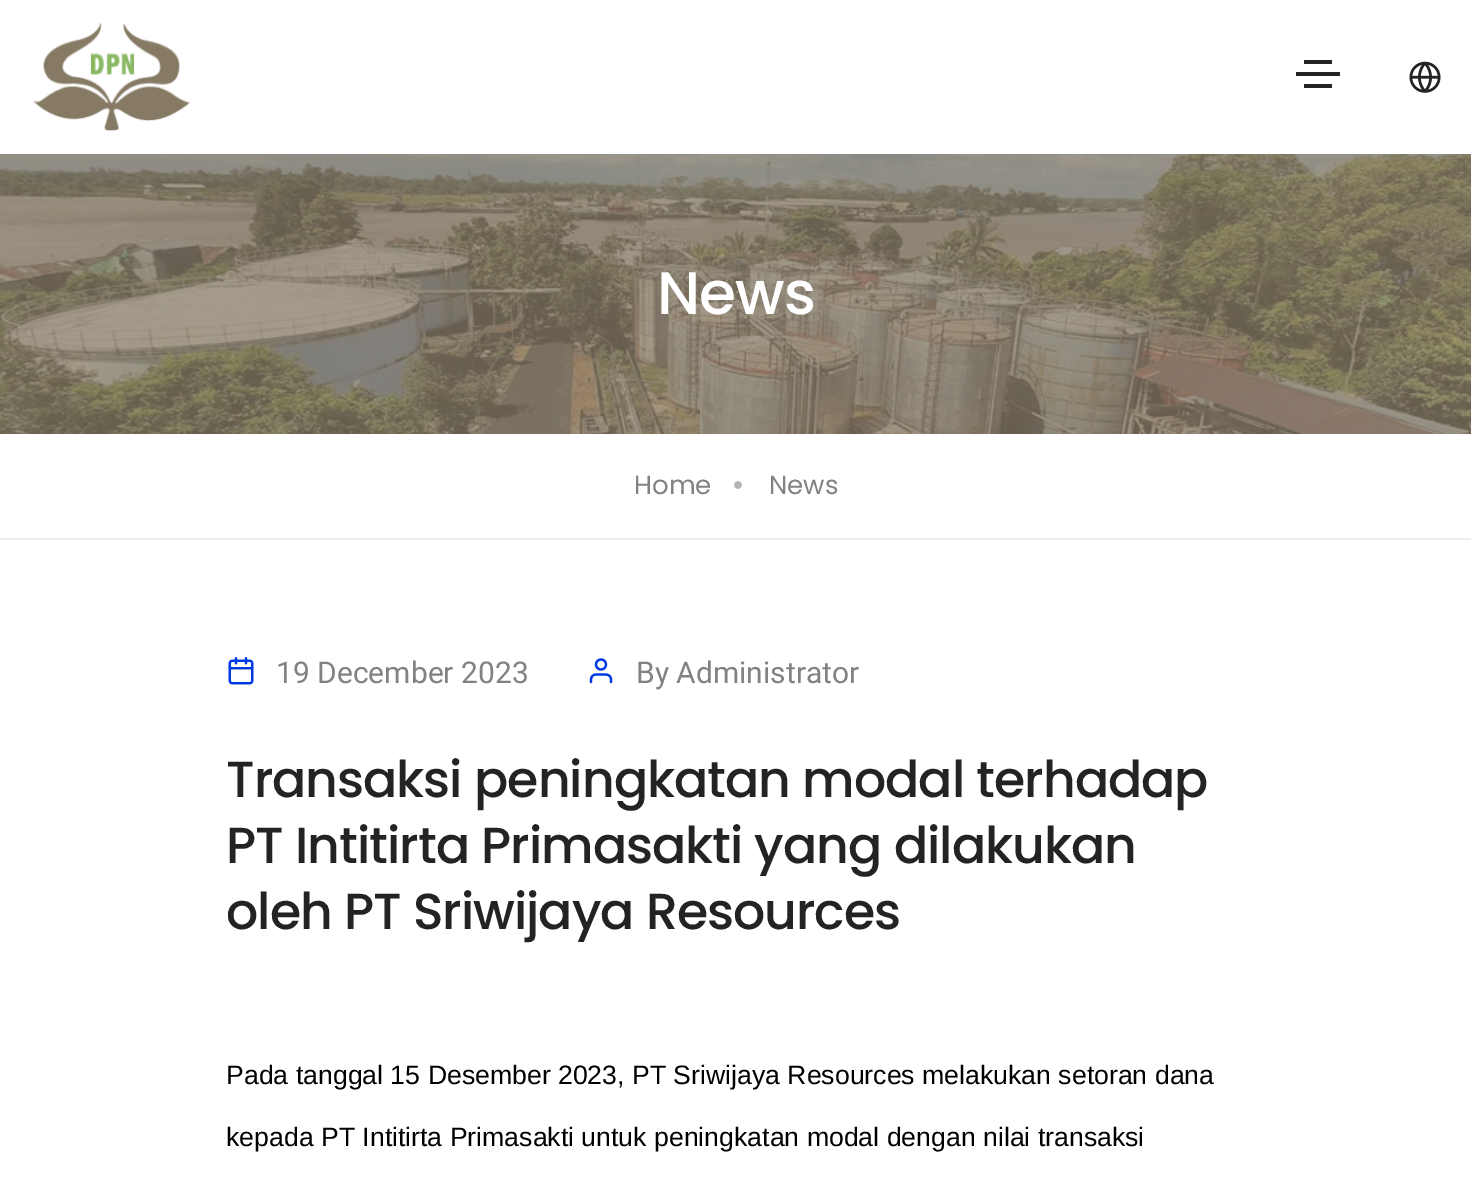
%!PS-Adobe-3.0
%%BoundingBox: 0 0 1471 1184
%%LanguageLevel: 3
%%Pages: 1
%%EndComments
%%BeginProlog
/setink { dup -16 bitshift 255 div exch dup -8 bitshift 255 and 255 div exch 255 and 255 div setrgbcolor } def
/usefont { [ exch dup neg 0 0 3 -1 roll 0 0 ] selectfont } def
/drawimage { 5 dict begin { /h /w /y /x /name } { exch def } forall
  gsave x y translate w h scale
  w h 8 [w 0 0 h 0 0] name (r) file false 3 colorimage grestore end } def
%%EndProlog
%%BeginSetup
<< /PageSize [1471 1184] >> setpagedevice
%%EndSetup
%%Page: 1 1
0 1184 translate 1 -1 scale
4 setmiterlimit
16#FFFFFF setink
0 0 1471 1184 rectfill
(img1.raw) 34 22 156 110 drawimage
[
    [1304 60 28 4 16#232323]
    [1296 72 44 4 16#232323]
    [1304 84 28 4 16#232323]
] { aload pop setink rectfill } forall
(img2.raw) 1409 61 32 32 drawimage
(img3.raw) 0 154 1471 280 drawimage
/Poppins-Medium 60 usefont
16#FFFFFF setink
657 314 moveto -1 0 (News) ashow
16#EDEDED setink
0 538 1471 2 rectfill
/Poppins-Regular 26 usefont
16#828282 setink
634 494 moveto (Home) show
(img4.raw) 734 481 8 8 drawimage
769 494 moveto (News) show
(img5.raw) 228 657 26 28 drawimage
/Roboto-Regular 30 usefont
276 683 moveto (19 December 2023) show
(img6.raw) 589 658 24 26 drawimage
636 683 moveto (By Administrator) show
/Poppins-Medium 50.6 usefont
16#232323 setink
226 797 moveto -1 0 (Transaksi peningkatan modal terhadap) ashow
226 863 moveto -1 0 (PT Intitirta Primasakti yang dilakukan) ashow
226 929 moveto -1 0 (oleh PT Sriwijaya Resources) ashow
/LiberationSans-Regular 26.65 usefont
16#000000 setink
226 1084 moveto (Pada tanggal 15 Desember 2023, PT Sriwijaya Resources melakukan setoran dana) show
226 1146 moveto (kepada PT Intitirta Primasakti untuk peningkatan modal dengan nilai transaksi) show
showpage
%%EOF
